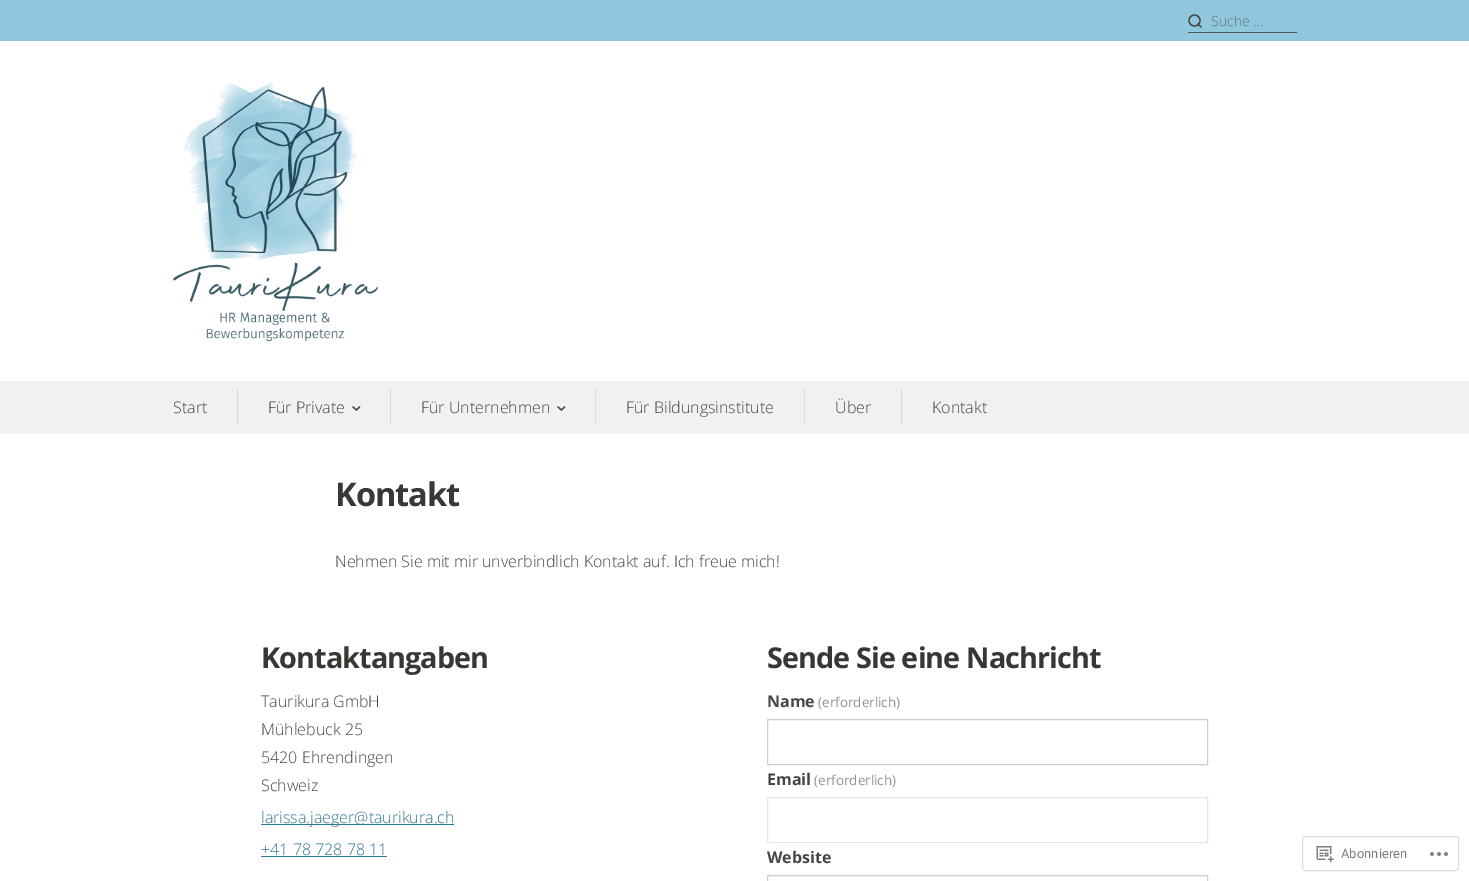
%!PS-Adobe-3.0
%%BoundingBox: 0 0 1469 881
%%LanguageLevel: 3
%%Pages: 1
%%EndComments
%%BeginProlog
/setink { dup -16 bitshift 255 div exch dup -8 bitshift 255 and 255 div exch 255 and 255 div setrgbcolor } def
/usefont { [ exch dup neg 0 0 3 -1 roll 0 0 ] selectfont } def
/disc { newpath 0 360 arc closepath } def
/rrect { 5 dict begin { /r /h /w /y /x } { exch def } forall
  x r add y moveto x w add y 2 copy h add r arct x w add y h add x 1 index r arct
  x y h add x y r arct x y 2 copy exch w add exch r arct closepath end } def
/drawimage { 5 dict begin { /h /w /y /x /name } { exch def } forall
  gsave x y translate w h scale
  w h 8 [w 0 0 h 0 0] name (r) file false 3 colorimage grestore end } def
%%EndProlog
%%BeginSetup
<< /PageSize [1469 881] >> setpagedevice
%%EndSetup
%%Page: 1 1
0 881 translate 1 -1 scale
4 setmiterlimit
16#FFFFFF setink
0 0 1469 881 rectfill
16#F1F1F1 setink
0 381 1469 53 rectfill
16#91C7DC setink
0 0 1469 41 rectfill
16#474747 setink
1.3 setlinewidth
1194.5 20.5 5.5 disc stroke
1 setlinecap
1 setlinejoin
1201 27 moveto 1198 24 lineto stroke
16#545454 setink
1188 32 109 1 rectfill
/OpenSans-Light 14 usefont
16#5D6D74 setink
1211 26 moveto (Suche …) show
(img1.raw) 173 81 205 260 drawimage
16#D9D9D9 setink
237 389 1 36 rectfill
/OpenSans-Light 16 usefont
16#464646 setink
173 413 moveto (Start) show
16#D9D9D9 setink
390 389 1 36 rectfill
16#464646 setink
268 413 moveto (Für Private) show
353 407 moveto 356.5 410 lineto 359.5 407 lineto stroke
16#D9D9D9 setink
595 389 1 36 rectfill
16#464646 setink
421 413 moveto (Für Unternehmen) show
558 407 moveto 561.5 410 lineto 564.5 407 lineto stroke
16#D9D9D9 setink
804 389 1 36 rectfill
16#464646 setink
626 413 moveto (Für Bildungsinstitute) show
16#D9D9D9 setink
901 389 1 36 rectfill
16#464646 setink
835 413 moveto (Über) show
932 413 moveto (Kontakt) show
/OpenSans-Bold 32.5 usefont
16#353833 setink
335 506 moveto -1 0 (Kontakt) ashow
/OpenSans-Light 16 usefont
16#464646 setink
335 567 moveto (Nehmen Sie mit mir unverbindlich Kontakt auf. Ich freue mich!) show
/OpenSans-Bold 28.75 usefont
16#353833 setink
261 668 moveto -0.9 0 (Kontaktangaben) ashow
/OpenSans-Light 16 usefont
16#464646 setink
[
    [(Taurikura GmbH) 261 707]
    [(Mühlebuck 25) 261 735]
    [(5420 Ehrendingen) 261 763]
    [(Schweiz) 261 791]
] { aload pop moveto show } forall
16#2E7693 setink
261 824 193 1 rectfill
261 823 moveto (larissa.jaeger@taurikura.ch) show
261 855 moveto (+41 78 728 78 11) show
261 856 126 1 rectfill
/OpenSans-Bold 28.75 usefont
16#353833 setink
767 668 moveto -0.9 0 (Sende Sie eine Nachricht) ashow
/OpenSans-Bold 16 usefont
16#464646 setink
767 707 moveto (Name) show
/OpenSans-Regular 13.5 usefont
16#909090 setink
818 707 moveto (\(erforderlich\)) show
16#CCCCCC setink
1 setlinewidth
0 setlinecap
0 setlinejoin
767.5 719.5 440 45 0.5 rrect stroke
/OpenSans-Bold 16 usefont
16#464646 setink
767 785 moveto (Email) show
/OpenSans-Regular 13.5 usefont
16#909090 setink
814 785 moveto (\(erforderlich\)) show
16#E5E5E5 setink
767.5 797.5 440 45 0.5 rrect stroke
/OpenSans-Bold 16 usefont
16#464646 setink
767 863 moveto (Website) show
16#CCCCCC setink
767.5 875.5 440 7 0.5 rrect stroke
16#DDDDDF setink
1302.5 836.5 156 34 2.5 rrect stroke
(img2.raw) 1316 846 18 17 drawimage
/Roboto-Regular 13 usefont
16#7B7F85 setink
1341 858 moveto (Abonnieren) show
(img3.raw) 1430 852 18 4 drawimage
showpage
%%EOF
